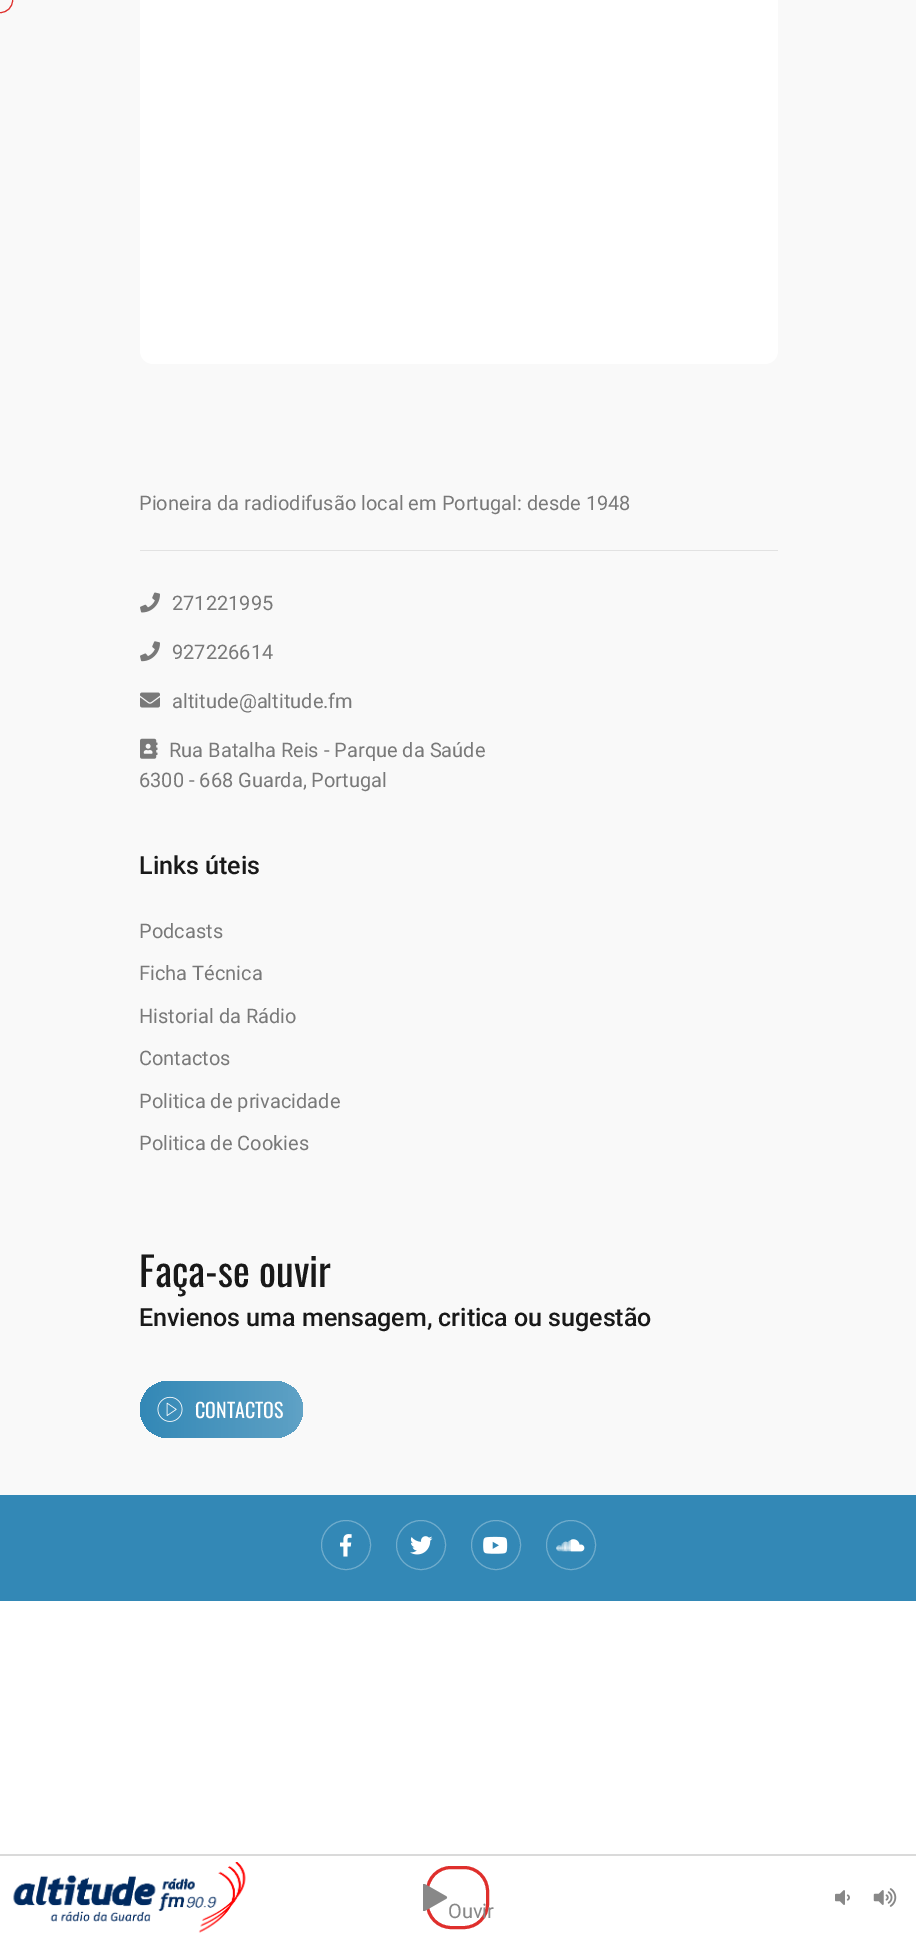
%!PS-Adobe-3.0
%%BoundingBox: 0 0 916 1937
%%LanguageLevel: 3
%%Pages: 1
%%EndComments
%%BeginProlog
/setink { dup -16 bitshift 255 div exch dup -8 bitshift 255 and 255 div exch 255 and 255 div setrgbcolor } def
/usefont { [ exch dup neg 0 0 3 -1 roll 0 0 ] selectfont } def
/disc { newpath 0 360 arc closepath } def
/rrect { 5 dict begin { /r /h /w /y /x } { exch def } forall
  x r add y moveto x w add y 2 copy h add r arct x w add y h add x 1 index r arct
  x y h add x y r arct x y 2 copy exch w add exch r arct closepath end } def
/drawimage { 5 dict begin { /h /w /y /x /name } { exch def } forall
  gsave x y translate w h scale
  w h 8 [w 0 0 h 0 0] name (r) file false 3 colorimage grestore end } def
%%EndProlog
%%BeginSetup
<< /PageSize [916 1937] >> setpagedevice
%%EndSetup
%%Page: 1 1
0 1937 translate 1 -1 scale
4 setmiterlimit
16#F9F9F9 setink
0 0 916 1937 rectfill
16#DF2F2C setink
0.5 0.5 12 disc stroke
16#FFFFFF setink
140 -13 638 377 13 rrect fill
16#E2E2E2 setink
140 550 638 1 rectfill
/Roboto-Regular 20 usefont
16#797979 setink
139 510 moveto (Pioneira da radiodifusão local em Portugal: desde 1948) show
(img1.raw) 140 592 20 21 drawimage
172 610 moveto (271221995) show
(img2.raw) 140 641 20 21 drawimage
172 659 moveto (927226614) show
(img3.raw) 140 692 20 16 drawimage
172 708 moveto (altitude@altitude.fm) show
(img4.raw) 140 738 18 21 drawimage
169 757 moveto (Rua Batalha Reis - Parque da Saúde) show
139 787 moveto (6300 - 668 Guarda, Portugal) show
/Roboto-Medium 25 usefont
16#191919 setink
139 874 moveto (Links úteis) show
/Roboto-Regular 20 usefont
16#797979 setink
[
    [(Podcasts) 139 938]
    [(Ficha Técnica) 139 980]
    [(Historial da Rádio) 139 1023]
    [(Contactos) 139 1065]
    [(Politica de privacidade) 139 1108]
    [(Politica de Cookies) 139 1150]
] { aload pop moveto show } forall
/Oswald-Regular 40 usefont
16#191919 setink
139 1287 moveto (Faça-se ouvir) show
/Roboto-Medium 25 usefont
139 1326 moveto (Envienos uma mensagem, critica ou sugestão) show
gsave 140 1381 163 57 28.5 rrect clip newpath
<< /ShadingType 2 /ColorSpace /DeviceRGB /Coords [140 1409 595 1409] /Extend [true true] /Function << /FunctionType 3 /Domain [0 1] /Functions [<< /FunctionType 2 /Domain [0 1] /C0 [0.2 0.533 0.714] /C1 [0.357 0.624 0.769] /N 1 >> << /FunctionType 2 /Domain [0 1] /C0 [0.357 0.624 0.769] /C1 [0.678 0.812 0.882] /N 1 >> << /FunctionType 2 /Domain [0 1] /C0 [0.678 0.812 0.882] /C1 [0.839 0.906 0.941] /N 1 >>] /Bounds [0.33 0.67] /Encode [0 1 0 1 0 1] >> >> shfill grestore
(img5.raw) 157 1396 26 26 drawimage
/Oswald-Regular 20 usefont
16#FFFFFF setink
195 1418 moveto (CONTACTOS) show
16#3388B6 setink
0 1495 916 106 rectfill
16#70ACCC setink
346 1545 24.5 disc stroke
(img6.raw) 340 1534 12 23 drawimage
421 1545 24.5 disc stroke
(img7.raw) 410 1536 23 19 drawimage
496 1545 24.5 disc stroke
(img8.raw) 483 1536 25 18 drawimage
571 1545 24.5 disc stroke
(img9.raw) 556 1539 29 13 drawimage
[
    [0 1601 916 253 16#FFFFFF]
    [0 1854 916 2 16#DADADA]
    [0 1856 916 81 16#FFFFFF]
] { aload pop setink rectfill } forall
(img10.raw) 13 1862 233 71 drawimage
(img11.raw) 835 1890 15 15 drawimage
(img12.raw) 873 1888 24 19 drawimage
16#DF2F2C setink
3 setlinewidth
427.5 1867.5 60 60 23.5 rrect stroke
(img13.raw) 423 1884 25 27 drawimage
/Roboto-Regular 20 usefont
16#888888 setink
448 1918 moveto (Ouvir) show
showpage
%%EOF
